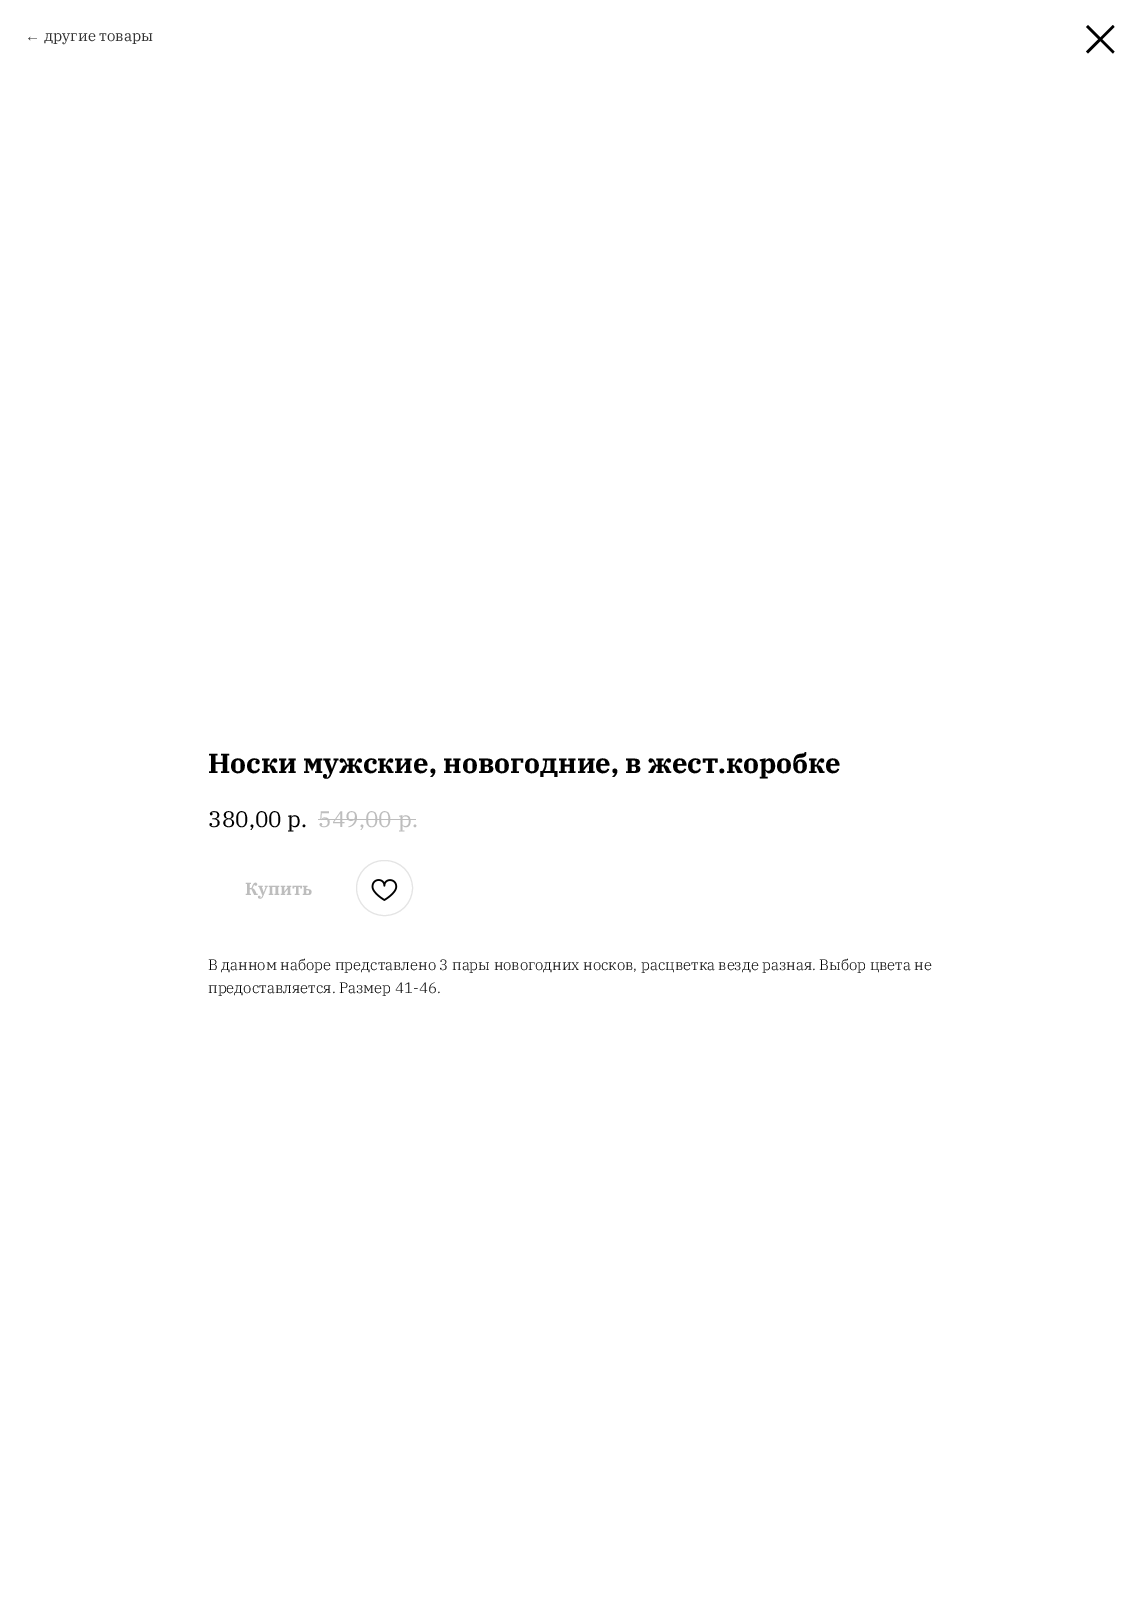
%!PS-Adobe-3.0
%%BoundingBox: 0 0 1139 1614
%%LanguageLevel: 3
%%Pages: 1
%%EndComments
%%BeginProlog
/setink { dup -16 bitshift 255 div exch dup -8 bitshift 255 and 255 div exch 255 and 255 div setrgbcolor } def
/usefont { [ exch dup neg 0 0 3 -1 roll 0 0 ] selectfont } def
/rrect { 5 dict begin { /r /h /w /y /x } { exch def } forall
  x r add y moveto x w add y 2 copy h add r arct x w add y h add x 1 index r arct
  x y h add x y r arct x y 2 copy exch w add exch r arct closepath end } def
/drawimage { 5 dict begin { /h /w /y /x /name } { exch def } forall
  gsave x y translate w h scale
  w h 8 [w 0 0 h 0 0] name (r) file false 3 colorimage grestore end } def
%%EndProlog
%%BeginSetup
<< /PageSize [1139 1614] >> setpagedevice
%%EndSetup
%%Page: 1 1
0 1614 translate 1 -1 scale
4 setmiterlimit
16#FFFFFF setink
0 0 1139 1614 rectfill
/LiberationSans-Regular 15 usefont
16#333333 setink
25 41 moveto (←) show
/IBMPlexSerif-Regular 15 usefont
44 41 moveto (другие товары) show
16#000000 setink
1086 27 moveto 1088 25 lineto 1114.5 51.5 lineto 1113 53.5 lineto closepath eofill
1113 25 moveto 1114.5 27 lineto 1088 53.5 lineto 1086 51.5 lineto closepath eofill
/IBMPlexSerif-Bold 27.5 usefont
208 773 moveto (Носки мужские, новогодние, в жест.коробке) show
/IBMPlexSerif-Regular 22.5 usefont
208 827 moveto (380,00) show
287 827 moveto (р.) show
16#BDBDBD setink
318 827 moveto (549,00) show
398 827 moveto (р.) show
318 819 98 1 rectfill
/IBMPlexSerif-Bold 17.5 usefont
245 895 moveto (Купить) show
16#E4E4E4 setink
356.5 860.5 56 55 27.5 rrect stroke
(img1.raw) 371 879 27 22 drawimage
/IBMPlexSerif-Light 15 usefont
16#000000 setink
208 970 moveto (В данном наборе представлено 3 пары новогодних носков, расцветка везде разная. Выбор цвета не) show
208 993 moveto (предоставляется. Размер 41-46.) show
showpage
%%EOF
